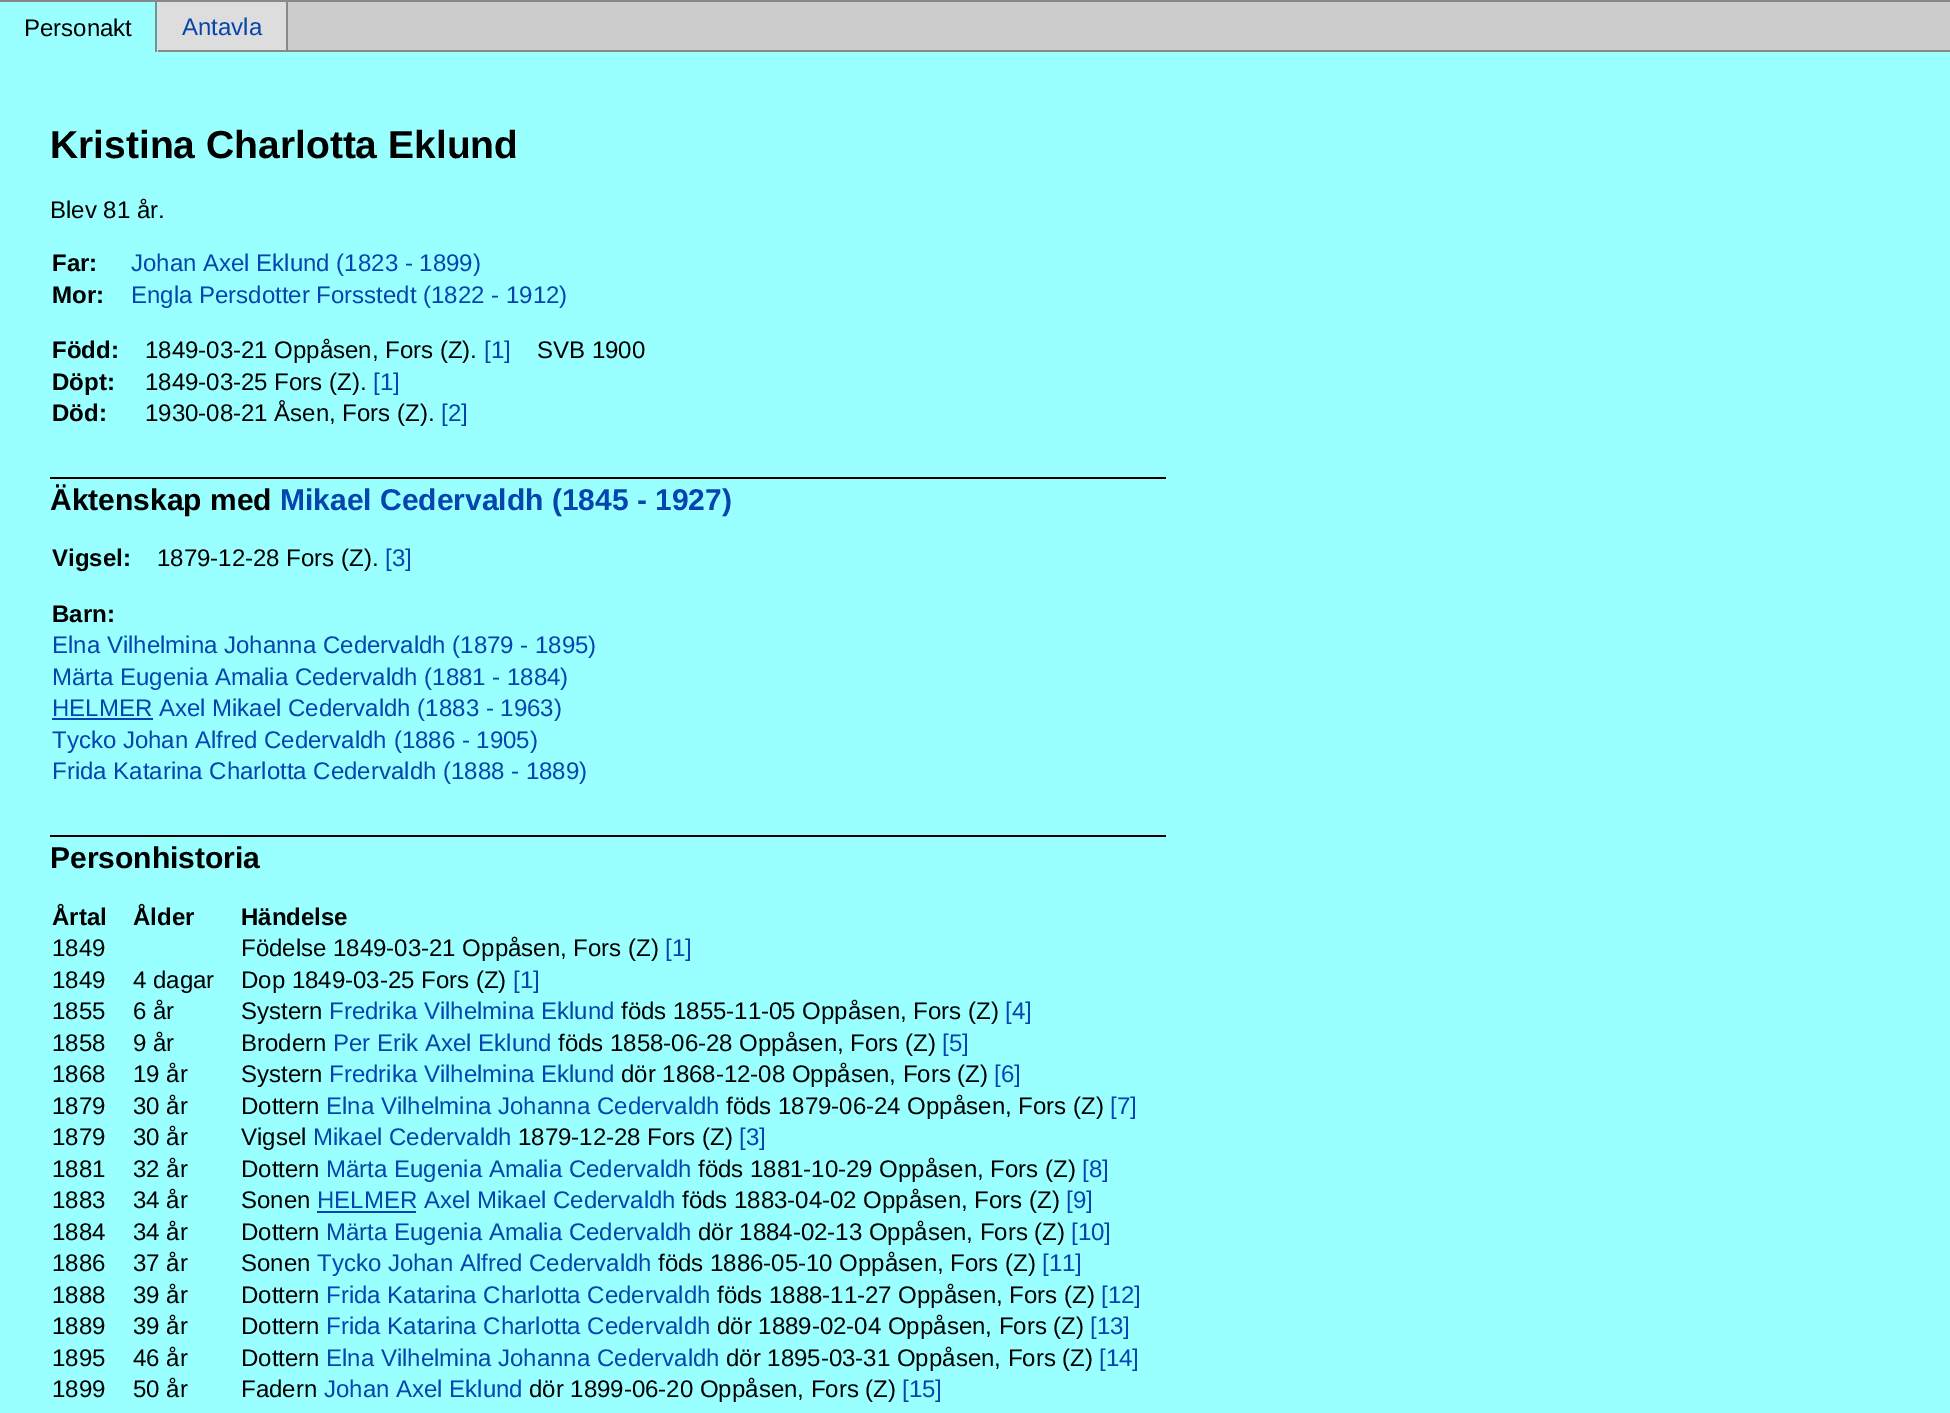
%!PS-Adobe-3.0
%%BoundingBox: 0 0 1950 1413
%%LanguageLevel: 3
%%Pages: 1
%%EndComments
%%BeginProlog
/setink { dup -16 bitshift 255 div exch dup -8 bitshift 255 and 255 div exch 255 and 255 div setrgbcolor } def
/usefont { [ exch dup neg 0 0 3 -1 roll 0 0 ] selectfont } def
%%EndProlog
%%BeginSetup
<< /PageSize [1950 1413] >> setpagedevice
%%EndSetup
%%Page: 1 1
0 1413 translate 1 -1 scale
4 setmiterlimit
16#99FFFF setink
0 0 1950 1413 rectfill
16#888888 setink
0 0 1950 2 rectfill
155 0 2 52 rectfill
/LiberationSans-Regular 24 usefont
16#000000 setink
24 36 moveto (Personakt) show
[
    [158 2 128 48 16#DDDDDD]
    [286 0 2 52 16#888888]
    [158 50 1792 2 16#888888]
] { aload pop setink rectfill } forall
16#0645AD setink
182 35 moveto (Antavla) show
16#CCCCCC setink
288 2 1662 48 rectfill
/LiberationSans-Bold 39 usefont
16#000000 setink
50 158 moveto (Kristina Charlotta Eklund) show
/LiberationSans-Regular 24 usefont
50 218 moveto (Blev 81 år.) show
/LiberationSans-Bold 24 usefont
52 271 moveto (Far:) show
/LiberationSans-Regular 24 usefont
16#0645AD setink
131 271 moveto (Johan Axel Eklund \(1823 - 1899\)) show
/LiberationSans-Bold 24 usefont
16#000000 setink
52 303 moveto (Mor:) show
/LiberationSans-Regular 24 usefont
16#0645AD setink
131 303 moveto (Engla Persdotter Forsstedt \(1822 - 1912\)) show
/LiberationSans-Bold 24 usefont
16#000000 setink
52 358 moveto (Född:) show
/LiberationSans-Regular 24 usefont
145 358 moveto (1849-03-21 Oppåsen, Fors \(Z\).) show
16#0645AD setink
484 358 moveto ([1]) show
16#000000 setink
537 358 moveto (SVB 1900) show
/LiberationSans-Bold 24 usefont
52 390 moveto (Döpt:) show
/LiberationSans-Regular 24 usefont
145 390 moveto (1849-03-25 Fors \(Z\).) show
16#0645AD setink
373 390 moveto ([1]) show
/LiberationSans-Bold 24 usefont
16#000000 setink
52 421 moveto (Död:) show
/LiberationSans-Regular 24 usefont
145 421 moveto (1930-08-21 Åsen, Fors \(Z\).) show
16#0645AD setink
441 421 moveto ([2]) show
16#000000 setink
50 477 1116 2 rectfill
/LiberationSans-Bold 30 usefont
50 510 moveto (Äktenskap med) show
16#0645AD setink
280 510 moveto (Mikael Cedervaldh \(1845 - 1927\)) show
/LiberationSans-Bold 24 usefont
16#000000 setink
52 566 moveto (Vigsel:) show
/LiberationSans-Regular 24 usefont
157 566 moveto (1879-12-28 Fors \(Z\).) show
16#0645AD setink
385 566 moveto ([3]) show
/LiberationSans-Bold 24 usefont
16#000000 setink
52 622 moveto (Barn:) show
/LiberationSans-Regular 24 usefont
16#0645AD setink
52 653 moveto (Elna Vilhelmina Johanna Cedervaldh \(1879 - 1895\)) show
52 685 moveto (Märta Eugenia Amalia Cedervaldh \(1881 - 1884\)) show
52 718 101 2 rectfill
[
    [(HELMER Axel Mikael Cedervaldh \(1883 - 1963\)) 52 716]
    [(Tycko Johan Alfred Cedervaldh \(1886 - 1905\)) 52 748]
    [(Frida Katarina Charlotta Cedervaldh \(1888 - 1889\)) 52 779]
] { aload pop moveto show } forall
16#000000 setink
50 835 1116 2 rectfill
/LiberationSans-Bold 30 usefont
50 868 moveto (Personhistoria) show
/LiberationSans-Bold 24 usefont
[
    [(Årtal) 52 925]
    [(Ålder) 133 925]
    [(Händelse) 241 925]
] { aload pop moveto show } forall
/LiberationSans-Regular 24 usefont
52 956 moveto (1849) show
241 956 moveto (Födelse 1849-03-21 Oppåsen, Fors \(Z\)) show
16#0645AD setink
665 956 moveto ([1]) show
16#000000 setink
[
    [(1849) 52 988]
    [(4 dagar) 133 988]
    [(Dop 1849-03-25 Fors \(Z\)) 241 988]
] { aload pop moveto show } forall
16#0645AD setink
513 988 moveto ([1]) show
16#000000 setink
[
    [(1855) 52 1019]
    [(6 år) 133 1019]
    [(Systern) 241 1019]
] { aload pop moveto show } forall
16#0645AD setink
329 1019 moveto (Fredrika Vilhelmina Eklund) show
16#000000 setink
621 1019 moveto (föds 1855-11-05 Oppåsen, Fors \(Z\)) show
16#0645AD setink
1005 1019 moveto ([4]) show
16#000000 setink
[
    [(1858) 52 1051]
    [(9 år) 133 1051]
    [(Brodern) 241 1051]
] { aload pop moveto show } forall
16#0645AD setink
333 1051 moveto (Per Erik Axel Eklund) show
16#000000 setink
558 1051 moveto (föds 1858-06-28 Oppåsen, Fors \(Z\)) show
16#0645AD setink
942 1051 moveto ([5]) show
16#000000 setink
[
    [(1868) 52 1082]
    [(19 år) 133 1082]
    [(Systern) 241 1082]
] { aload pop moveto show } forall
16#0645AD setink
329 1082 moveto (Fredrika Vilhelmina Eklund) show
16#000000 setink
621 1082 moveto (dör 1868-12-08 Oppåsen, Fors \(Z\)) show
16#0645AD setink
994 1082 moveto ([6]) show
16#000000 setink
[
    [(1879) 52 1114]
    [(30 år) 133 1114]
    [(Dottern) 241 1114]
] { aload pop moveto show } forall
16#0645AD setink
326 1114 moveto (Elna Vilhelmina Johanna Cedervaldh) show
16#000000 setink
726 1114 moveto (föds 1879-06-24 Oppåsen, Fors \(Z\)) show
16#0645AD setink
1110 1114 moveto ([7]) show
16#000000 setink
[
    [(1879) 52 1145]
    [(30 år) 133 1145]
    [(Vigsel) 241 1145]
] { aload pop moveto show } forall
16#0645AD setink
313 1145 moveto (Mikael Cedervaldh) show
16#000000 setink
518 1145 moveto (1879-12-28 Fors \(Z\)) show
16#0645AD setink
739 1145 moveto ([3]) show
16#000000 setink
[
    [(1881) 52 1177]
    [(32 år) 133 1177]
    [(Dottern) 241 1177]
] { aload pop moveto show } forall
16#0645AD setink
326 1177 moveto (Märta Eugenia Amalia Cedervaldh) show
16#000000 setink
698 1177 moveto (föds 1881-10-29 Oppåsen, Fors \(Z\)) show
16#0645AD setink
1082 1177 moveto ([8]) show
16#000000 setink
[
    [(1883) 52 1208]
    [(34 år) 133 1208]
    [(Sonen) 241 1208]
] { aload pop moveto show } forall
16#0645AD setink
317 1208 moveto (HELMER Axel Mikael Cedervaldh) show
317 1211 99 2 rectfill
16#000000 setink
682 1208 moveto (föds 1883-04-02 Oppåsen, Fors \(Z\)) show
16#0645AD setink
1066 1208 moveto ([9]) show
16#000000 setink
[
    [(1884) 52 1240]
    [(34 år) 133 1240]
    [(Dottern) 241 1240]
] { aload pop moveto show } forall
16#0645AD setink
326 1240 moveto (Märta Eugenia Amalia Cedervaldh) show
16#000000 setink
698 1240 moveto (dör 1884-02-13 Oppåsen, Fors \(Z\)) show
16#0645AD setink
1071 1240 moveto ([10]) show
16#000000 setink
[
    [(1886) 52 1271]
    [(37 år) 133 1271]
    [(Sonen) 241 1271]
] { aload pop moveto show } forall
16#0645AD setink
317 1271 moveto (Tycko Johan Alfred Cedervaldh) show
16#000000 setink
658 1271 moveto (föds 1886-05-10 Oppåsen, Fors \(Z\)) show
16#0645AD setink
1042 1271 moveto ([11]) show
16#000000 setink
[
    [(1888) 52 1303]
    [(39 år) 133 1303]
    [(Dottern) 241 1303]
] { aload pop moveto show } forall
16#0645AD setink
326 1303 moveto (Frida Katarina Charlotta Cedervaldh) show
16#000000 setink
717 1303 moveto (föds 1888-11-27 Oppåsen, Fors \(Z\)) show
16#0645AD setink
1101 1303 moveto ([12]) show
16#000000 setink
[
    [(1889) 52 1334]
    [(39 år) 133 1334]
    [(Dottern) 241 1334]
] { aload pop moveto show } forall
16#0645AD setink
326 1334 moveto (Frida Katarina Charlotta Cedervaldh) show
16#000000 setink
717 1334 moveto (dör 1889-02-04 Oppåsen, Fors \(Z\)) show
16#0645AD setink
1090 1334 moveto ([13]) show
16#000000 setink
[
    [(1895) 52 1366]
    [(46 år) 133 1366]
    [(Dottern) 241 1366]
] { aload pop moveto show } forall
16#0645AD setink
326 1366 moveto (Elna Vilhelmina Johanna Cedervaldh) show
16#000000 setink
726 1366 moveto (dör 1895-03-31 Oppåsen, Fors \(Z\)) show
16#0645AD setink
1099 1366 moveto ([14]) show
16#000000 setink
[
    [(1899) 52 1397]
    [(50 år) 133 1397]
    [(Fadern) 241 1397]
] { aload pop moveto show } forall
16#0645AD setink
324 1397 moveto (Johan Axel Eklund) show
16#000000 setink
529 1397 moveto (dör 1899-06-20 Oppåsen, Fors \(Z\)) show
16#0645AD setink
902 1397 moveto ([15]) show
showpage
%%EOF
